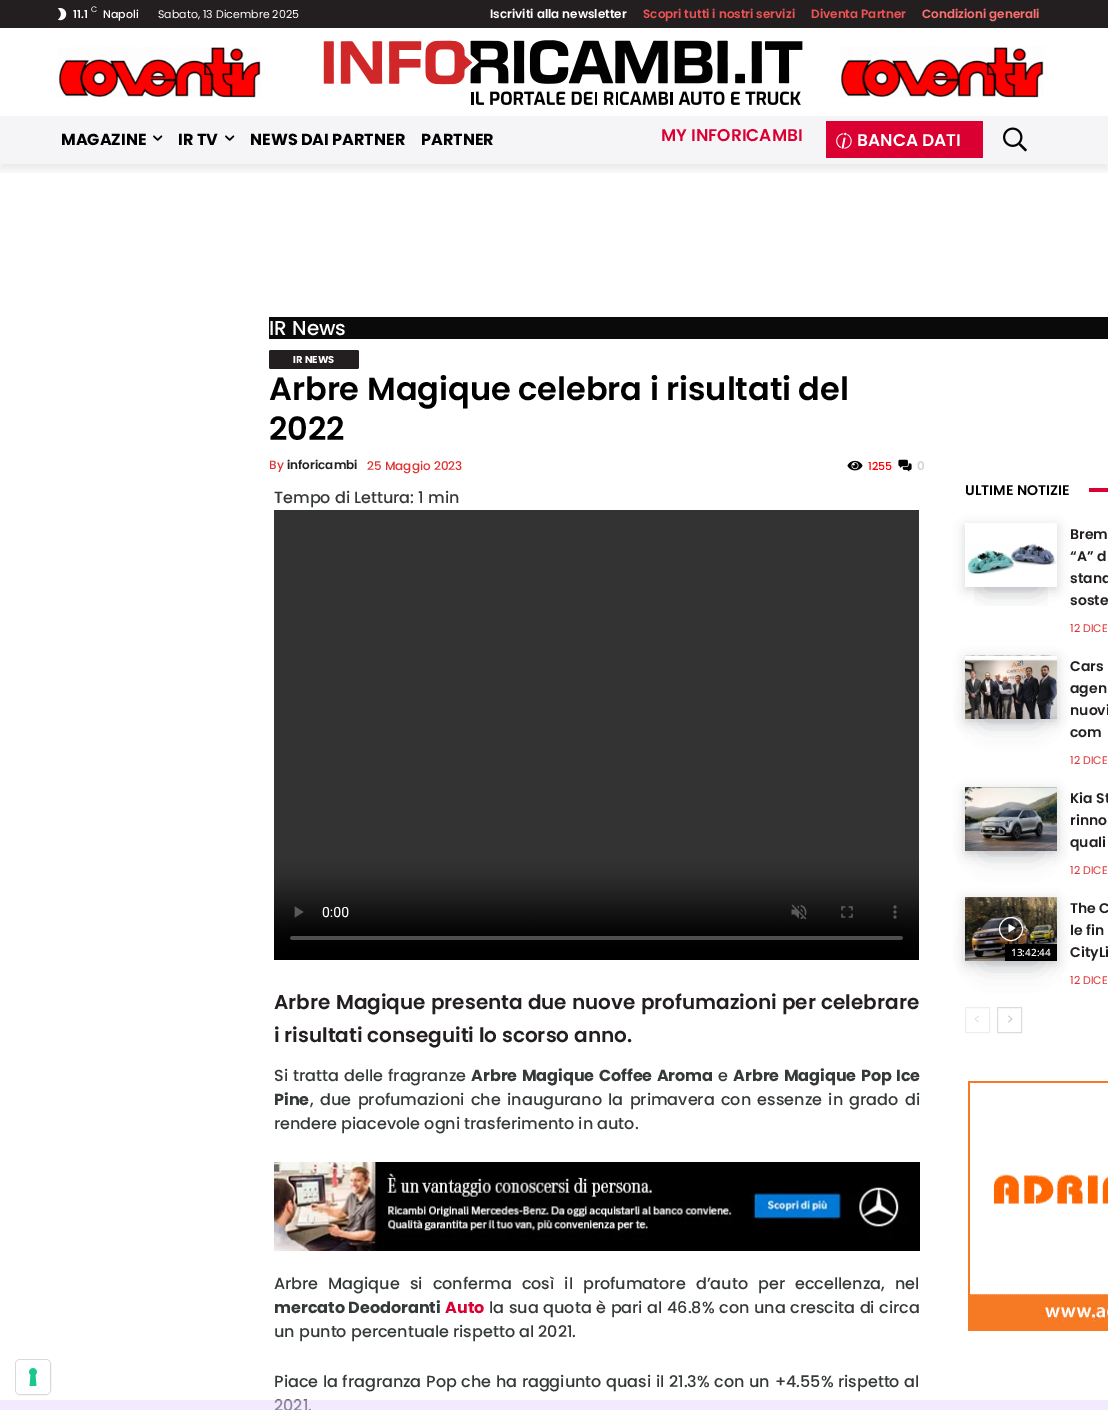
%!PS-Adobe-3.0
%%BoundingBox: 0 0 1108 1410
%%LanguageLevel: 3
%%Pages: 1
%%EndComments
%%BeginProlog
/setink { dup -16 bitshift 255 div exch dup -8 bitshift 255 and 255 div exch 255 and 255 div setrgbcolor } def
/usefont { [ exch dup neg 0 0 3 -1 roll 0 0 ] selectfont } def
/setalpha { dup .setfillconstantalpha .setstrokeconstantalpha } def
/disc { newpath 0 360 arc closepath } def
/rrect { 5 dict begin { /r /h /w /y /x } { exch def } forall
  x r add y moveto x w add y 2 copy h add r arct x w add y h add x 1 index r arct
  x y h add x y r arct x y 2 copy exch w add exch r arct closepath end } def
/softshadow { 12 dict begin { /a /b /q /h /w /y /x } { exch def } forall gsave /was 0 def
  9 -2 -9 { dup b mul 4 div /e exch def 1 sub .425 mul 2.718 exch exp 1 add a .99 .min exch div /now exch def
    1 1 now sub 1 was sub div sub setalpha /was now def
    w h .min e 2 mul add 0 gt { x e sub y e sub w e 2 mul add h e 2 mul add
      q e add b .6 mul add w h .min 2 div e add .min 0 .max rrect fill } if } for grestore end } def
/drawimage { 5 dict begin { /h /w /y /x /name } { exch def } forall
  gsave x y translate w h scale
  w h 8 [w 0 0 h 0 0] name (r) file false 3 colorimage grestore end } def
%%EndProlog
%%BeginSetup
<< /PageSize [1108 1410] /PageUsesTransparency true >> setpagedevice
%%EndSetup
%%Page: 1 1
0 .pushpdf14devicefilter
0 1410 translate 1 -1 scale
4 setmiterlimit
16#FFFFFF setink
0 0 1108 1410 rectfill
16#D9D9D9 setink
15.5 1359.5 35 35 4.5 rrect stroke
16#FFFFFF setink
16 1360 34 34 4 rrect fill
(img1.raw) 29 1368 8 18 drawimage
16#231F20 setink
0 0 1108 28 rectfill
(img2.raw) 57 7 10 14 drawimage
(img3.raw) 58 47 203 51 drawimage
(img4.raw) 323 40 480 65 drawimage
(img5.raw) 840 46 204 52 drawimage
16#F5F5F7 setink
0 116 1108 48 rectfill
16#DB0032 setink
826 121 157 37 rectfill
(img7.raw) 836 132 16 17 drawimage
gsave
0 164 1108 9 rectclip
16#000000 setink
0 6 1108 164 0 4 0.08 softshadow
grestore
/Poppins-SemiBold 11 usefont
16#FFFFFF setink
73 18 moveto (11.1) show
/Poppins-Regular 8 usefont
91 12 moveto (C) show
/Poppins-Medium 11 usefont
103 18 moveto (Napoli) show
/Poppins-Regular 11 usefont
158 18 moveto (Sabato, 13 Dicembre 2025) show
/Poppins-SemiBold 12 usefont
490 18 moveto (Iscriviti alla newsletter) show
16#EE5252 setink
643 18 moveto (Scopri tutti i nostri servizi) show
811 18 moveto (Diventa Partner) show
16#FF7070 setink
922 18 moveto (Condizioni generali) show
/Poppins-Bold 16 usefont
16#000000 setink
61 145 moveto (MAGAZINE) show
(img6.raw) 153 135 10 6 drawimage
178 145 moveto (IR TV) show
(img6.raw) 225 135 10 6 drawimage
250 145 moveto (NEWS DAI PARTNER) show
421 145 moveto (PARTNER) show
/Poppins-SemiBold 17 usefont
16#DB0032 setink
661 141 moveto (MY INFORICAMBI) show
16#FFFFFF setink
857 146 moveto (BANCA DATI) show
(img8.raw) 1003 127 24 25 drawimage
16#0A0A0A setink
269 317 839 22 rectfill
/Poppins-Medium 20 usefont
16#FFFFFF setink
269 335 moveto (IR News) show
16#231F20 setink
269 350 90 19 2 rrect fill
/Poppins-Bold 10 usefont
16#FFFFFF setink
293 363 moveto (IR NEWS) show
/Poppins-SemiBold 32 usefont
16#000000 setink
269 400 moveto (Arbre Magique celebra i risultati del) show
269 440 moveto (2022) show
/Poppins-Medium 12 usefont
16#DD3333 setink
269 469 moveto (By) show
/Poppins-SemiBold 12 usefont
16#231F20 setink
287 469 moveto (inforicambi) show
/Poppins-Medium 12 usefont
16#DD3333 setink
367 470 moveto (25 Maggio 2023) show
(img9.raw) 847 460 16 11 drawimage
/Poppins-Medium 11 usefont
16#FF0000 setink
868 470 moveto (1255) show
(img10.raw) 898 459 14 13 drawimage
/Poppins-SemiBold 12 usefont
16#CED4DA setink
917 470 moveto (0) show
/Poppins-Medium 16 usefont
16#353939 setink
274 503 moveto (Tempo di Lettura: 1 min) show
(img11.raw) 274 510 645 450 drawimage
/Poppins-SemiBold 20 usefont
16#231F20 setink
274 1009 moveto 0.5 0 32 (Arbre Magique presenta due nuove profumazioni per celebrare) widthshow
274 1042 moveto (i risultati conseguiti lo scorso anno.) show
/Poppins-Medium 16 usefont
16#353939 setink
274 1081 moveto 1 0 32 (Si tratta delle fragranze) widthshow
/Poppins-Bold 16 usefont
471 1081 moveto 1 0 32 (Arbre Magique Coffee Aroma) widthshow
/Poppins-Medium 16 usefont
718 1081 moveto (e) show
/Poppins-Bold 16 usefont
733 1081 moveto 1 0 32 (Arbre Magique Pop Ice) widthshow
274 1105 moveto (Pine) show
/Poppins-Medium 16 usefont
310 1105 moveto 2.25 0 32 (, due profumazioni che inaugurano la primavera con essenze in grado di) widthshow
274 1129 moveto (rendere piacevole ogni trasferimento in auto.) show
(img12.raw) 274 1162 646 89 drawimage
274 1289 moveto 6 0 32 (Arbre Magique si conferma così il profumatore d’auto per eccellenza, nel) widthshow
/Poppins-Bold 16 usefont
274 1313 moveto (mercato Deodoranti) show
16#DB0032 setink
445 1313 moveto (Auto) show
/Poppins-Medium 16 usefont
16#353939 setink
489 1313 moveto 0.5 0 32 (la sua quota è pari al 46.8% con una crescita di circa) widthshow
274 1337 moveto (un punto percentuale rispetto al 2021.) show
274 1387 moveto 0.5 0 32 (Piace la fragranza Pop che ha raggiunto quasi il 21.3% con un +4.55% rispetto al) widthshow
274 1411 moveto (2021.) show
/Poppins-SemiBold 14 usefont
16#000000 setink
965 495 moveto (ULTIME NOTIZIE) show
16#DB0032 setink
1089 488 19 4 rectfill
gsave
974 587 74 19 rectclip
16#070A19 setink
985 565 52 24 0 13.5 0.2 softshadow
grestore
gsave
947 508 moveto 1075 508 lineto 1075 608 lineto 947 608 lineto closepath 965 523 moveto 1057 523 lineto 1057 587 lineto 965 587 lineto closepath eoclip newpath
16#070A19 setink
966 527 90 62 0 6 0.2 softshadow
grestore
(img13.raw) 967 543 90 32 drawimage
16#231F20 setink
[
    [(Brem) 1070 539]
    [(“A” d) 1070 561]
    [(stand) 1070 583]
    [(soste) 1070 605]
] { aload pop moveto show } forall
/Poppins-Regular 11 usefont
16#DD3333 setink
1070 632 moveto (12 DICE) show
16#070A19 setink
985 697 52 24 0 13.5 0.2 softshadow
966 659 90 62 0 6 0.2 softshadow
(img14.raw) 965 655 92 64 drawimage
/Poppins-SemiBold 14 usefont
16#231F20 setink
[
    [(Cars) 1070 671]
    [(agen) 1070 693]
    [(nuovi) 1070 715]
    [(com) 1070 737]
] { aload pop moveto show } forall
/Poppins-Regular 11 usefont
16#DD3333 setink
1070 764 moveto (12 DICE) show
16#070A19 setink
985 829 52 24 0 13.5 0.2 softshadow
966 791 90 62 0 6 0.2 softshadow
(img15.raw) 965 787 92 64 drawimage
/Poppins-SemiBold 14 usefont
16#231F20 setink
[
    [(Kia St) 1070 803]
    [(rinno) 1070 825]
    [(quali) 1070 847]
] { aload pop moveto show } forall
/Poppins-Regular 11 usefont
16#DD3333 setink
1070 874 moveto (12 DICE) show
16#070A19 setink
985 939 52 24 0 13.5 0.2 softshadow
966 901 90 62 0 6 0.2 softshadow
(img16.raw) 965 897 92 64 drawimage
gsave
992 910 moveto 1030 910 lineto 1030 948 lineto 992 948 lineto closepath 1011 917 moveto 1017.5 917 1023 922.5 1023 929 curveto 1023 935.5 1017.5 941 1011 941 curveto 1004.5 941 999 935.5 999 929 curveto 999 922.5 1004.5 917 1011 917 curveto closepath eoclip newpath
16#000000 setink
999 917 24 24 12 2 0.4 softshadow
grestore
0.48 setalpha
16#000000 setink
1011 929 11.5 disc fill
1 setalpha
16#FFFFFF setink
1011 929 11.5 disc stroke
1008.5 924 moveto 1008.5 932.5 lineto 1015.5 928 lineto closepath fill
16#000000 setink
1005 944 52 17 rectfill
/OpenSans-SemiBold 10 usefont
16#FFFFFF setink
1011 956 moveto (13:42:44) show
/Poppins-SemiBold 14 usefont
16#231F20 setink
[
    [(The C) 1070 913]
    [(le fin) 1070 935]
    [(CityLi) 1070 957]
] { aload pop moveto show } forall
/Poppins-Regular 11 usefont
16#DD3333 setink
1070 984 moveto (12 DICE) show
16#EEEEEE setink
965.5 1007.5 24 25 rectstroke
(img17.raw) 974 1015 5 8 drawimage
16#DCDCDC setink
997.5 1007.5 24 25 rectstroke
(img18.raw) 1008 1015 5 8 drawimage
(img19.raw) 968 1081 140 250 drawimage
0.5 setalpha
16#E8D5FF setink
0 1400 1108 10 rectfill
.poppdf14devicefilter showpage
%%EOF
